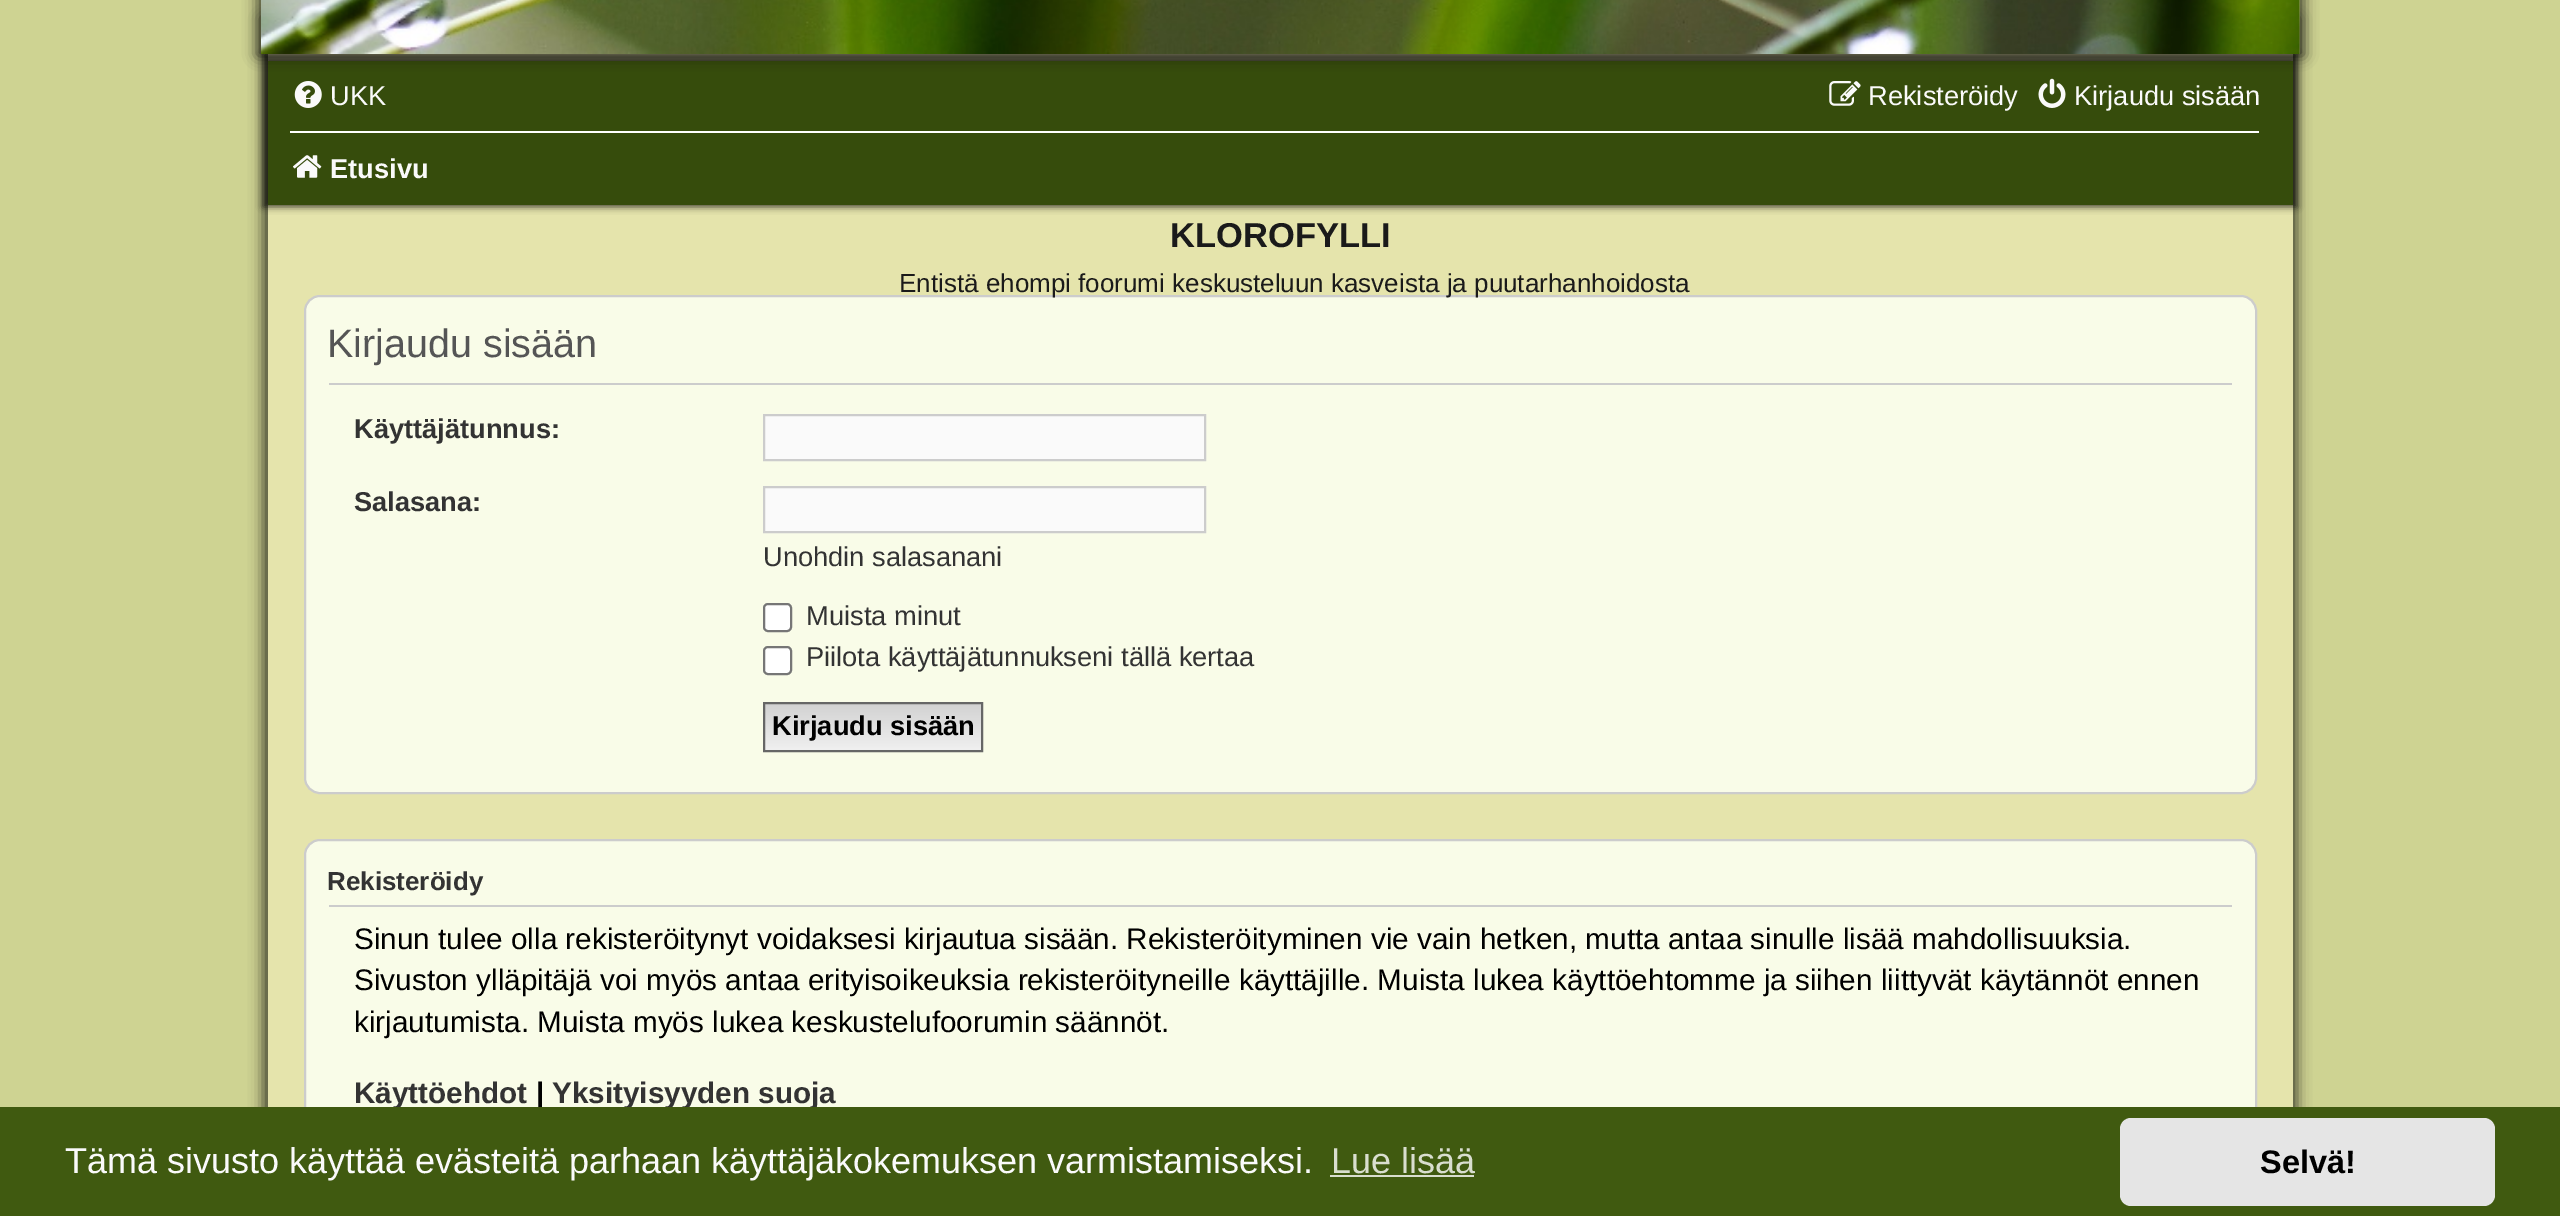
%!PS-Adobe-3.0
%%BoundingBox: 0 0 2560 1216
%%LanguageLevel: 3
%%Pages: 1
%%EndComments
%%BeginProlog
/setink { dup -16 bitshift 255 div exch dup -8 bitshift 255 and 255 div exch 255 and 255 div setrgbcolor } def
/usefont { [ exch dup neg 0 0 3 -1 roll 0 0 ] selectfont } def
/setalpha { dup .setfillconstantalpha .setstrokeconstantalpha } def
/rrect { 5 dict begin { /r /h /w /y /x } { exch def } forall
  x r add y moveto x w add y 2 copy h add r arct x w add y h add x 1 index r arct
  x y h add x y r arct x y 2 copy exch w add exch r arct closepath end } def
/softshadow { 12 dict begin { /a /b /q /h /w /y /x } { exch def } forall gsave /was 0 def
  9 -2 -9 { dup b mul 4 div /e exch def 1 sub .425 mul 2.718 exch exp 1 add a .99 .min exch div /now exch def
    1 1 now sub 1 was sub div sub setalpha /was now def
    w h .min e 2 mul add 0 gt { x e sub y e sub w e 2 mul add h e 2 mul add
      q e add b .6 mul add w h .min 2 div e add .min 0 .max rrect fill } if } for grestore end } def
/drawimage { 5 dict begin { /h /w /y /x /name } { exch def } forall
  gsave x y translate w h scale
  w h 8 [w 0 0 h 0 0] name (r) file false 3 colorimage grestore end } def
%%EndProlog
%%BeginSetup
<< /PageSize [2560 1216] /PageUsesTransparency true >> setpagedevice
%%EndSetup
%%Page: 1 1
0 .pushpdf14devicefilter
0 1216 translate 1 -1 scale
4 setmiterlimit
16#CED392 setink
0 0 2560 1216 rectfill
16#020202 setink
263 18 2034 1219 0 7 0.7 softshadow
16#E5E4AC setink
268 54 2025 1053 rectfill
16#020202 setink
263 54 2034 153 0 3.5 0.7 softshadow
16#364C0C setink
268 61 2025 144 rectfill
16#020202 setink
257 -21 2047 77 0 7 0.7 softshadow
(img1.raw) 261 0 2039 54 drawimage
(img2.raw) 294 81 28 27 drawimage
/LiberationSans-Regular 27.25 usefont
16#FAFAFA setink
330 105 moveto (UKK) show
(img3.raw) 1829 81 32 25 drawimage
1868 105 moveto (Rekisteröidy) show
(img4.raw) 2038 78 28 30 drawimage
2074 105 moveto (Kirjaudu sisään) show
16#FFFFFF setink
290 131 1969 2 rectfill
(img5.raw) 293 155 29 23 drawimage
/LiberationSans-Bold 27.25 usefont
16#FAFAFA setink
330 178 moveto (Etusivu) show
/LiberationSans-Bold 34.5 usefont
16#1A1A1A setink
1170 247 moveto (KLOROFYLLI) show
16#F9FCE8 setink
305 296 1951 497 15 rrect gsave fill grestore
16#CCCCCC setink
2 setlinewidth
stroke
/LiberationSans-Regular 26 usefont
16#1A1A1A setink
899 292 moveto (Entistä ehompi foorumi keskusteluun kasveista ja puutarhanhoidosta) show
16#CCCCCC setink
329 383 1903 2 rectfill
/LiberationSans-Regular 39.5 usefont
16#555555 setink
327 357 moveto (Kirjaudu sisään) show
/LiberationSans-Bold 27.25 usefont
16#333333 setink
354 438 moveto (Käyttäjätunnus:) show
16#FAFAFA setink
764 415 moveto 1205 415 lineto 1205 460 lineto 764 460 lineto closepath gsave fill grestore
16#CCCCCC setink
stroke
16#333333 setink
354 511 moveto (Salasana:) show
16#FAFAFA setink
764 487 moveto 1205 487 lineto 1205 532 lineto 764 532 lineto closepath gsave fill grestore
16#CCCCCC setink
stroke
/LiberationSans-Regular 27.25 usefont
16#333333 setink
763 566 moveto (Unohdin salasanani) show
16#FFFFFF setink
764 604 27 27 4 rrect gsave fill grestore
16#767676 setink
stroke
16#333333 setink
806 625 moveto (Muista minut) show
16#FFFFFF setink
764 647 27 27 4 rrect gsave fill grestore
16#767676 setink
stroke
16#333333 setink
806 666 moveto (Piilota käyttäjätunnukseni tällä kertaa) show
16#EFEFEF setink
765 749 216 1 rectfill
gsave 765 704 moveto 981 704 lineto 981 749 lineto 765 749 lineto closepath clip newpath
<< /ShadingType 2 /ColorSpace /DeviceRGB /Coords [873 704 873 749] /Extend [true true] /Function << /FunctionType 2 /Domain [0 1] /C0 [0.824 0.824 0.824] /C1 [0.937 0.937 0.937] /N 1 >> >> shfill grestore
16#666666 setink
764 703 218 48 rectstroke
/LiberationSans-Bold 27.25 usefont
16#000000 setink
772 735 moveto (Kirjaudu sisään) show
16#F9FCE8 setink
305 840 1951 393 15 rrect gsave fill grestore
16#CCCCCC setink
stroke
329 905 1903 2 rectfill
/LiberationSans-Bold 26 usefont
16#333333 setink
327 890 moveto (Rekisteröidy) show
/LiberationSans-Regular 29.7 usefont
16#000000 setink
[
    [(Sinun tulee olla rekisteröitynyt voidaksesi kirjautua sisään. Rekisteröityminen vie vain hetken, mutta antaa sinulle lisää mahdollisuuksia.) 354 949]
    [(Sivuston ylläpitäjä voi myös antaa erityisoikeuksia rekisteröityneille käyttäjille. Muista lukea käyttöehtomme ja siihen liittyvät käytännöt ennen) 354 990]
    [(kirjautumista. Muista myös lukea keskustelufoorumin säännöt.) 354 1032]
] { aload pop moveto show } forall
/LiberationSans-Bold 29.7 usefont
16#333333 setink
354 1103 moveto (Käyttöehdot) show
16#000000 setink
536 1103 moveto (|) show
16#333333 setink
552 1103 moveto (Yksityisyyden suoja) show
16#405A10 setink
0 1107 2560 109 rectfill
/LiberationSans-Regular 36 usefont
16#FAFAFA setink
65 1173 moveto (Tämä sivusto käyttää evästeitä parhaan käyttäjäkokemuksen varmistamiseksi.) show
16#D9DECF setink
1331 1173 moveto (Lue lisää) show
1330 1175 144 2 rectfill
16#E5E5E5 setink
2120 1118 375 88 11 rrect fill
/LiberationSans-Bold 32.5 usefont
16#000000 setink
2260 1173 moveto (Selvä!) show
.poppdf14devicefilter showpage
%%EOF
